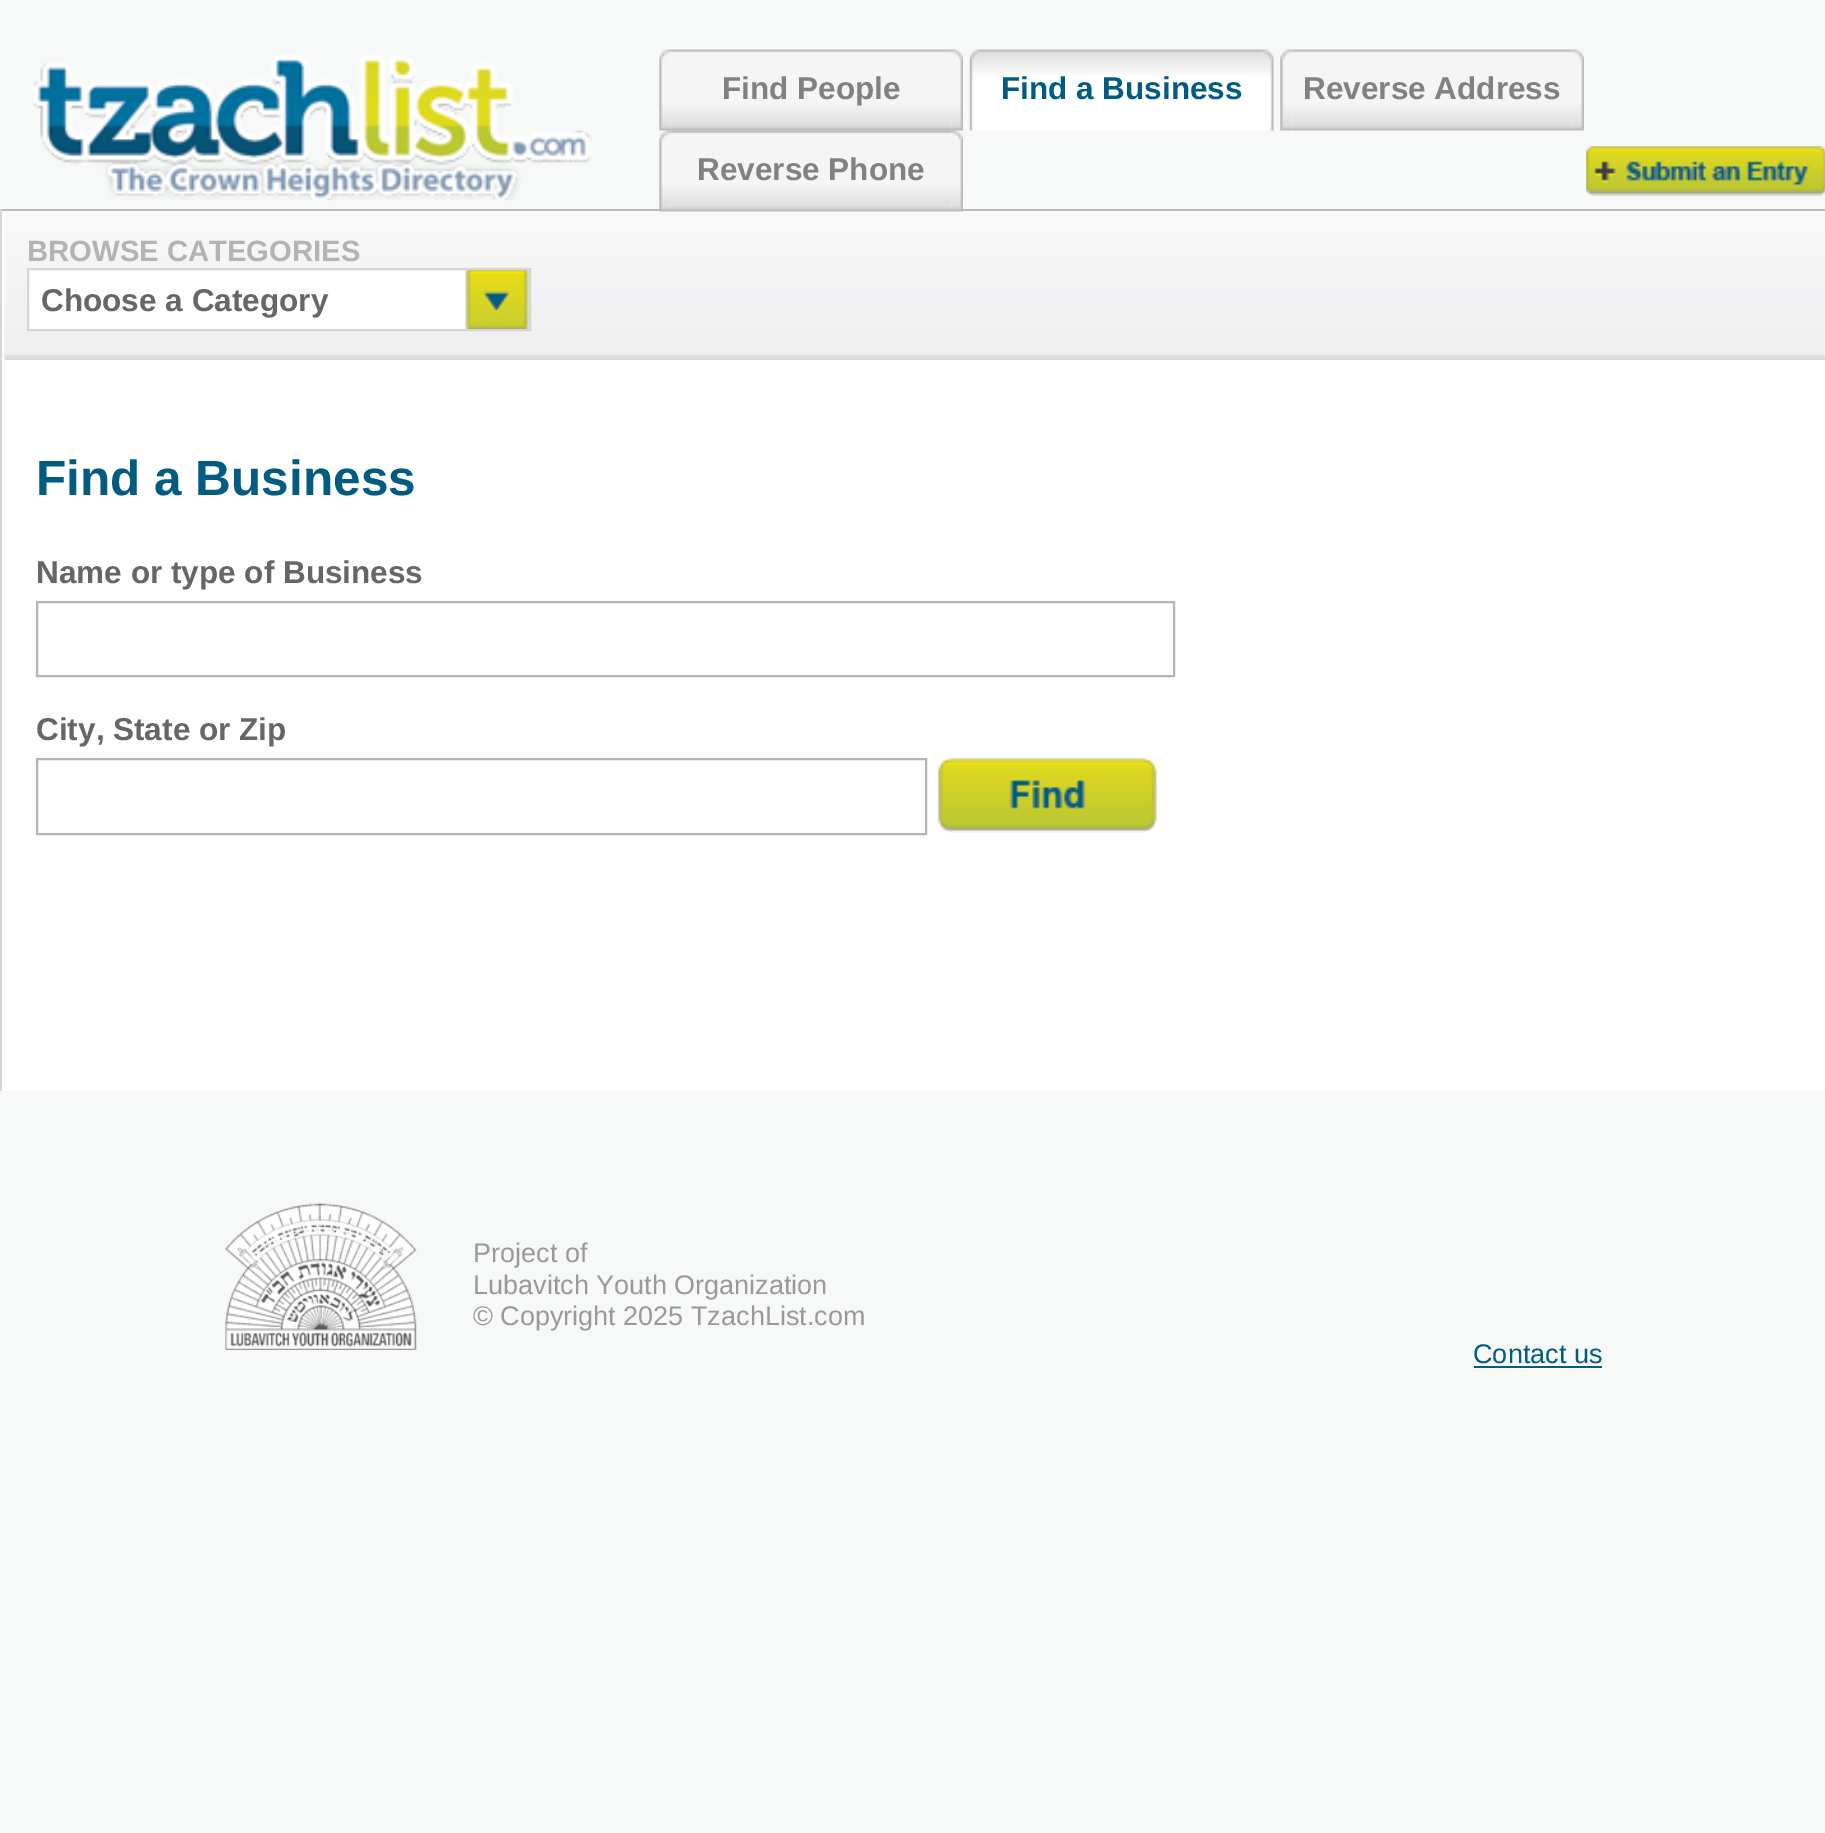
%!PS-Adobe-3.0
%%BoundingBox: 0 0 1825 1833
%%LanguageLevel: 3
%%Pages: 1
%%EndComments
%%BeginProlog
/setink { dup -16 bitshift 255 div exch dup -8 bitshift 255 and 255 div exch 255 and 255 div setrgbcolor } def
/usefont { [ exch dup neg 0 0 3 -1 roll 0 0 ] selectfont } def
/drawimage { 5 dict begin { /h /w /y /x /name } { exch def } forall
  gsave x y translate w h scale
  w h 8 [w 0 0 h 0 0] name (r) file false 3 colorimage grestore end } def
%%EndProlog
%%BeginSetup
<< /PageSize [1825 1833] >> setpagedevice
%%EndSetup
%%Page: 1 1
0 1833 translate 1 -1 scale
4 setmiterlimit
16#F7F8F8 setink
0 0 1825 1833 rectfill
(img1.raw) 33 55 559 146 drawimage
(img2.raw) 659 49 12 82 drawimage
(img3.raw) 951 49 12 82 drawimage
(img4.raw) 670 49 282 82 drawimage
/LiberationSans-Bold 31.5 usefont
16#818181 setink
722 99 moveto (Find People) show
(img5.raw) 969 49 12 82 drawimage
(img6.raw) 1262 49 12 82 drawimage
(img7.raw) 981 49 282 82 drawimage
16#025C81 setink
1001 99 moveto (Find a Business) show
(img8.raw) 1280 49 12 82 drawimage
(img9.raw) 1572 49 12 82 drawimage
(img4.raw) 1291 49 282 82 drawimage
16#818181 setink
1303 99 moveto (Reverse Address) show
16#FFFFFF setink
2 211 1823 880 rectfill
16#BCBBB9 setink
0 209 1825 2 rectfill
(img14.raw) 4 211 1821 147 drawimage
(img10.raw) 659 130 12 82 drawimage
(img11.raw) 951 130 12 82 drawimage
(img12.raw) 670 130 282 82 drawimage
16#818181 setink
697 180 moveto (Reverse Phone) show
(img13.raw) 1586 146 239 50 drawimage
16#D7D6D4 setink
0 209 2 882 rectfill
16#DAD9D8 setink
5 358 1820 2 rectfill
/LiberationSans-Bold 29.25 usefont
16#B3B3B3 setink
27 261 moveto (BROWSE CATEGORIES) show
16#FFFFFF setink
29 270 500 59 rectfill
(img15.raw) 465 267 64 62 drawimage
16#D6D6D6 setink
2 setlinewidth
28 269 502 61 rectstroke
/LiberationSans-Bold 31.5 usefont
16#666666 setink
41 311 moveto (Choose a Category) show
/LiberationSans-Bold 49.5 usefont
16#025C81 setink
36 495 moveto (Find a Business) show
/LiberationSans-Bold 31.5 usefont
16#666666 setink
36 583 moveto (Name or type of Business) show
16#B5B5B5 setink
37 602 1137 74 rectstroke
16#666666 setink
36 740 moveto (City, State or Zip) show
16#B5B5B5 setink
37 759 889 75 rectstroke
(img16.raw) 937 757 221 76 drawimage
(img17.raw) 225 1203 192 147 drawimage
/LiberationSans-Regular 27 usefont
16#999999 setink
[
    [(Project of) 473 1262]
    [(Lubavitch Youth Organization) 473 1294]
    [(© Copyright 2025 TzachList.com) 473 1325]
] { aload pop moveto show } forall
16#025C81 setink
1473 1363 moveto (Contact us) show
1474 1366 128 2 rectfill
showpage
%%EOF
